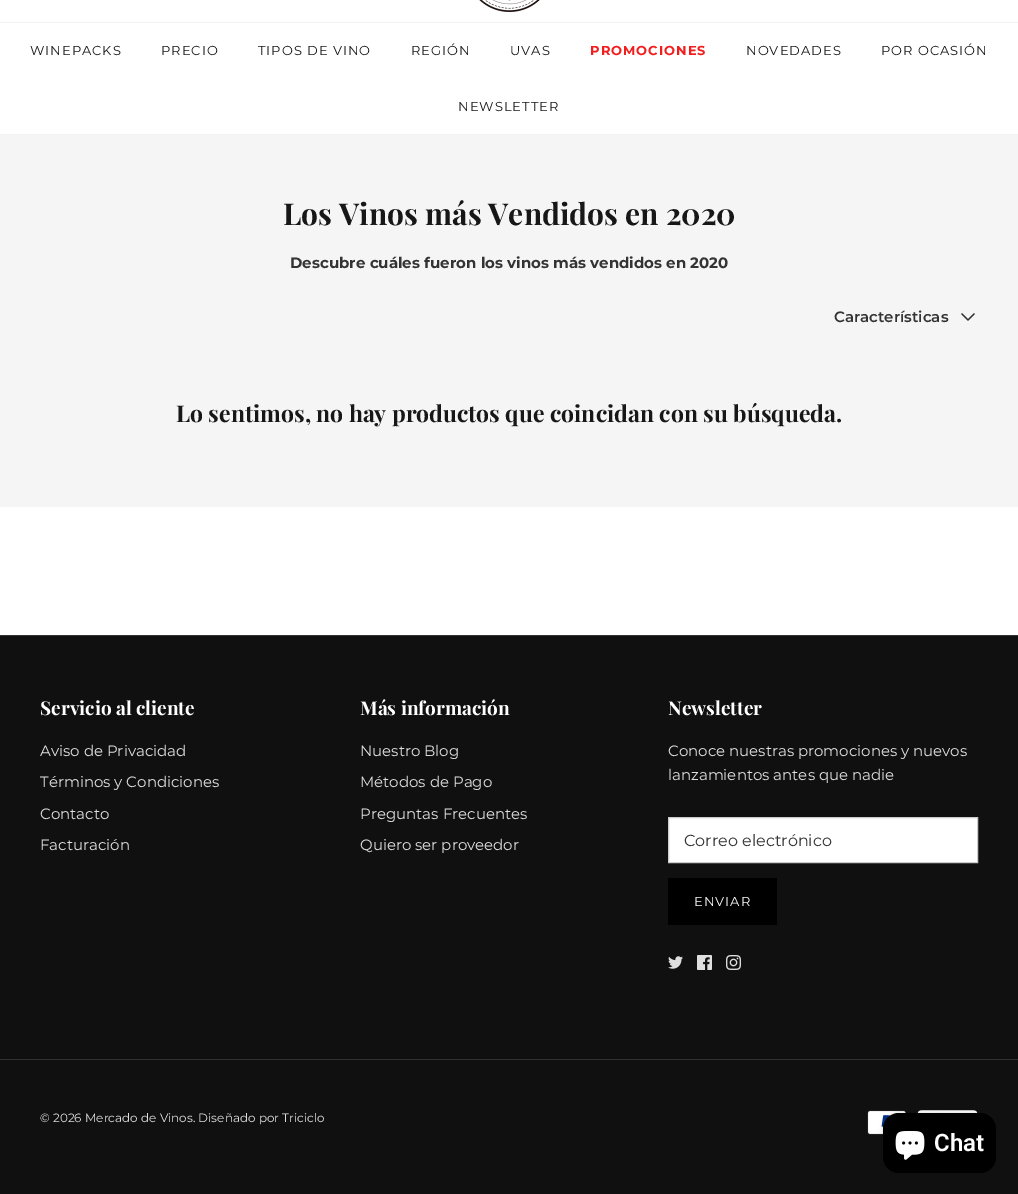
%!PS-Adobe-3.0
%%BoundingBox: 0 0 1018 1194
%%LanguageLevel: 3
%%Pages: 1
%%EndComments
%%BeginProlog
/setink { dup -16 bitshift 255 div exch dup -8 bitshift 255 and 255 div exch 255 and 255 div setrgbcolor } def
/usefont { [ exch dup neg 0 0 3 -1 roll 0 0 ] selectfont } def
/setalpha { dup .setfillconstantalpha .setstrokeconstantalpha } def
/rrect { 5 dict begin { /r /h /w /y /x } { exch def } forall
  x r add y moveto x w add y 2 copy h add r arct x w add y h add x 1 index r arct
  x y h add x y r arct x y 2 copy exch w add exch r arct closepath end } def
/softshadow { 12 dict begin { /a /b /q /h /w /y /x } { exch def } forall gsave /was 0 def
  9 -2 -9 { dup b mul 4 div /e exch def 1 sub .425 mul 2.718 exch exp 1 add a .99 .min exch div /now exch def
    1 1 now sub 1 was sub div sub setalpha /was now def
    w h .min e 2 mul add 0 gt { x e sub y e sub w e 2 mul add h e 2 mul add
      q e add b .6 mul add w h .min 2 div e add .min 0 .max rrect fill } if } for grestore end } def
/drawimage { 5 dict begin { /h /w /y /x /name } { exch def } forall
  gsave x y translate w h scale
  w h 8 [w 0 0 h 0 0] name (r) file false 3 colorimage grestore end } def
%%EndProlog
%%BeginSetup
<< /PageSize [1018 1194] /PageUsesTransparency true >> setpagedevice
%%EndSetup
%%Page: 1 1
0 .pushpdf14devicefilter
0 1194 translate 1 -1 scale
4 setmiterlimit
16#FFFFFF setink
0 0 1018 1194 rectfill
16#F2F2F2 setink
0 22 1018 1 rectfill
(img1.raw) 479 0 61 12 drawimage
0 134 1018 1 rectfill
/Montserrat-Regular 13 usefont
16#171717 setink
30 55 moveto 1 0 (WINEPACKS) ashow
161 55 moveto 1 0 (PRECIO) ashow
258 55 moveto 1 0 (TIPOS DE VINO) ashow
411 55 moveto 1 0 (REGIÓN) ashow
510 55 moveto 1 0 (UVAS) ashow
/Montserrat-Bold 13 usefont
16#F21E1E setink
590 55 moveto 1 0 (PROMOCIONES) ashow
/Montserrat-Regular 13 usefont
16#171717 setink
746 55 moveto 1 0 (NOVEDADES) ashow
881 55 moveto 1 0 (POR OCASIÓN) ashow
458 111 moveto 1 0 (NEWSLETTER) ashow
16#F5F5F5 setink
0 135 1018 372 rectfill
/PlayfairDisplay-Bold 30 usefont
16#171717 setink
283 225 moveto (Los Vinos más Vendidos en 2020) show
/Montserrat-Bold 15 usefont
16#333333 setink
290 268 moveto (Descubre cuáles fueron los vinos más vendidos en 2020) show
/Montserrat-SemiBold 15 usefont
834 322 moveto (Características) show
1.3 setlinewidth
1 setlinecap
1 setlinejoin
962 314 moveto 968 320 lineto 974 314 lineto stroke
/PlayfairDisplay-Bold 23 usefont
16#171717 setink
176 422 moveto (Lo sentimos, no hay productos que coincidan con su búsqueda.) show
16#101010 setink
0 636 1018 558 rectfill
16#313131 setink
0 635 1018 1 rectfill
/PlayfairDisplay-Bold 19 usefont
16#FFFFFF setink
40 715 moveto (Servicio al cliente) show
/Montserrat-Regular 15 usefont
16#DFDFDF setink
[
    [(Aviso de Privacidad) 40 756]
    [(Términos y Condiciones) 40 787]
    [(Contacto) 40 819]
    [(Facturación) 40 850]
] { aload pop moveto show } forall
/PlayfairDisplay-Bold 19 usefont
16#FFFFFF setink
360 715 moveto (Más información) show
/Montserrat-Regular 15 usefont
16#DFDFDF setink
[
    [(Nuestro Blog) 360 756]
    [(Métodos de Pago) 360 787]
    [(Preguntas Frecuentes) 360 819]
    [(Quiero ser proveedor) 360 850]
] { aload pop moveto show } forall
/PlayfairDisplay-Bold 19 usefont
16#FFFFFF setink
668 715 moveto (Newsletter) show
/Montserrat-Regular 15 usefont
16#DFDFDF setink
668 756 moveto (Conoce nuestras promociones y nuevos) show
668 780 moveto (lanzamientos antes que nadie) show
16#FFFFFF setink
668.5 817.5 moveto 977.5 817.5 lineto 977.5 862.5 lineto 668.5 862.5 lineto closepath gsave fill grestore
16#CCCCCC setink
1 setlinewidth
0 setlinecap
0 setlinejoin
stroke
/Montserrat-Regular 16 usefont
16#333333 setink
684 846 moveto (Correo electrónico) show
16#000000 setink
668 878 109 47 rectfill
/Montserrat-Regular 13 usefont
16#FFFFFF setink
694 906 moveto 1 0 (ENVIAR) ashow
(img2.raw) 668 956 15 13 drawimage
(img3.raw) 697 955 15 15 drawimage
(img4.raw) 726 955 15 15 drawimage
16#313131 setink
0 1059 1018 1 rectfill
/Montserrat-Regular 12 usefont
16#DFDFDF setink
40 1122 moveto (© 2026 Mercado de Vinos. Diseñado por Triciclo) show
(img5.raw) 867 1110 40 25 drawimage
(img6.raw) 917 1110 61 3 drawimage
16#000000 setink
883 1113 113 60 16 2.5 0.15 softshadow
883 1113 113 60 16 rrect fill
(img7.raw) 895 1131 30 29 drawimage
/Roboto-SemiBold 24 usefont
16#FFFFFF setink
934 1151 moveto (Chat) show
.poppdf14devicefilter showpage
%%EOF
